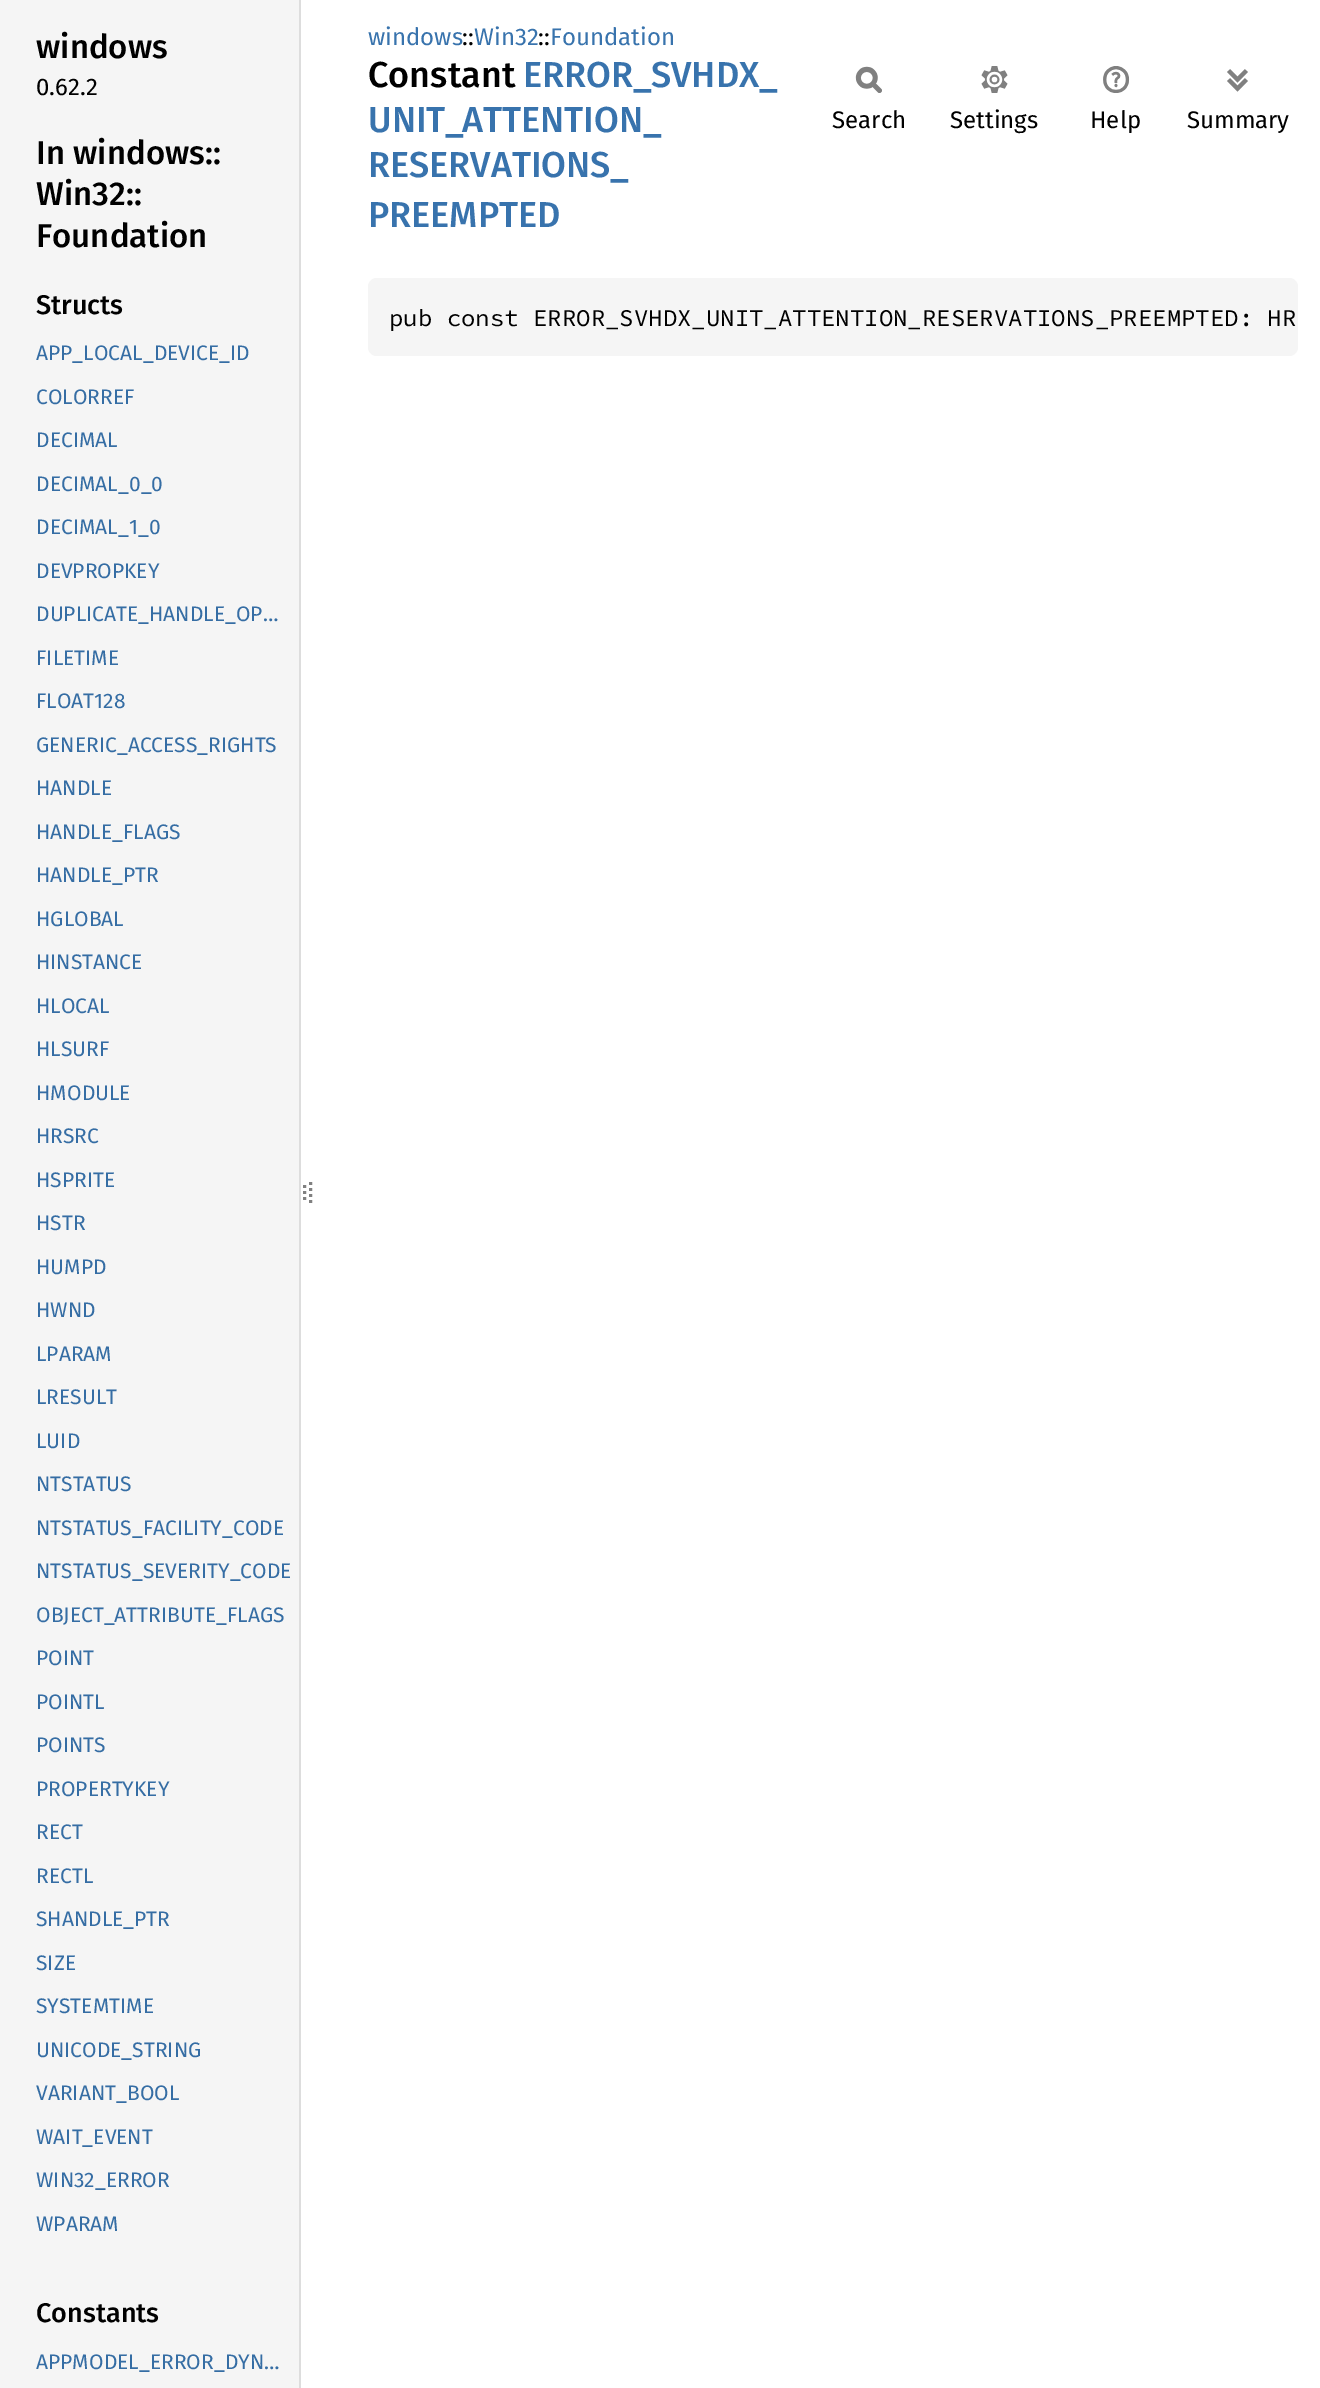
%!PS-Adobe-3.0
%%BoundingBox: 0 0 1320 2388
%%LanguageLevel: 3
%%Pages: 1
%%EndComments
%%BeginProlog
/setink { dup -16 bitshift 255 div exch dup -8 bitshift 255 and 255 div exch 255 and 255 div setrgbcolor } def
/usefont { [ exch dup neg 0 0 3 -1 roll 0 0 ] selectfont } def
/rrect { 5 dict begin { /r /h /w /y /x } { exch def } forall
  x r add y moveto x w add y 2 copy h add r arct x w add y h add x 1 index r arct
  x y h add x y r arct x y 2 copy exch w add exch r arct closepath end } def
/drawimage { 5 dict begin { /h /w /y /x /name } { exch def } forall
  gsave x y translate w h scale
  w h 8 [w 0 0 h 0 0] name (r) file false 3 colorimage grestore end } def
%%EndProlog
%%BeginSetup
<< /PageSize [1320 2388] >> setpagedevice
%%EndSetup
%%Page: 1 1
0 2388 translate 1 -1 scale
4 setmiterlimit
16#FFFFFF setink
0 0 1320 2388 rectfill
16#F5F5F5 setink
0 0 299 2388 rectfill
16#DDDDDD setink
299 0 2 2388 rectfill
/FiraSans-Medium 33 usefont
16#000000 setink
36 58 moveto (windows) show
/FiraSans-Regular 24 usefont
36 95 moveto (0.62.2) show
/FiraSans-Medium 33 usefont
[
    [(In windows::) 36 164]
    [(Win32::) 36 205]
    [(Foundation) 36 247]
] { aload pop moveto show } forall
/FiraSans-Medium 27 usefont
36 314 moveto (Structs) show
/FiraSans-Regular 21 usefont
16#356DA4 setink
[
    [(APP_LOCAL_DEVICE_ID) 36 360]
    [(COLORREF) 36 404]
    [(DECIMAL) 36 447]
    [(DECIMAL_0_0) 36 491]
    [(DECIMAL_1_0) 36 534]
    [(DEVPROPKEY) 36 578]
    [(DUPLICATE_HANDLE_OP…) 36 621]
    [(FILETIME) 36 665]
    [(FLOAT128) 36 708]
    [(GENERIC_ACCESS_RIGHTS) 36 752]
    [(HANDLE) 36 795]
    [(HANDLE_FLAGS) 36 839]
    [(HANDLE_PTR) 36 882]
    [(HGLOBAL) 36 926]
    [(HINSTANCE) 36 969]
    [(HLOCAL) 36 1013]
    [(HLSURF) 36 1056]
    [(HMODULE) 36 1100]
    [(HRSRC) 36 1143]
    [(HSPRITE) 36 1187]
    [(HSTR) 36 1230]
    [(HUMPD) 36 1274]
    [(HWND) 36 1317]
    [(LPARAM) 36 1361]
    [(LRESULT) 36 1404]
    [(LUID) 36 1448]
    [(NTSTATUS) 36 1491]
    [(NTSTATUS_FACILITY_CODE) 36 1535]
    [(NTSTATUS_SEVERITY_CODE) 36 1578]
    [(OBJECT_ATTRIBUTE_FLAGS) 36 1622]
    [(POINT) 36 1665]
    [(POINTL) 36 1709]
    [(POINTS) 36 1752]
    [(PROPERTYKEY) 36 1796]
    [(RECT) 36 1839]
    [(RECTL) 36 1883]
    [(SHANDLE_PTR) 36 1926]
    [(SIZE) 36 1970]
    [(SYSTEMTIME) 36 2013]
    [(UNICODE_STRING) 36 2057]
    [(VARIANT_BOOL) 36 2100]
    [(WAIT_EVENT) 36 2144]
    [(WIN32_ERROR) 36 2187]
    [(WPARAM) 36 2231]
] { aload pop moveto show } forall
/FiraSans-Medium 27 usefont
16#000000 setink
36 2322 moveto (Constants) show
/FiraSans-Regular 21 usefont
16#356DA4 setink
36 2369 moveto (APPMODEL_ERROR_DYN…) show
16#808080 setink
3 setlinewidth
304.5 1185 moveto 304.5 1188 lineto 304.5 1191 moveto 304.5 1194 lineto 304.5 1197 moveto 304.5 1200 lineto stroke
[3 3] 0 setdash
310.5 1182 moveto 310.5 1206 lineto stroke
/FiraSans-Regular 24 usefont
16#3873AD setink
368 45 moveto (windows) show
16#000000 setink
462 45 moveto (::) show
16#3873AD setink
474 45 moveto (Win32) show
16#000000 setink
538 45 moveto (::) show
16#3873AD setink
550 45 moveto (Foundation) show
/FiraSans-Medium 36 usefont
16#000000 setink
368 87 moveto (Constant) show
16#3873AD setink
[
    [(ERROR_) 523 87]
    [(SVHDX_) 651 87]
    [(UNIT_) 368 132]
    [(ATTENTION_) 462 132]
    [(RESERVATIONS_) 368 177]
    [(PREEMPTED) 368 227]
] { aload pop moveto show } forall
(img1.raw) 855 66 27 27 drawimage
/FiraSans-Regular 24 usefont
16#000000 setink
832 128 moveto (Search) show
(img2.raw) 981 66 27 27 drawimage
950 128 moveto (Settings) show
(img3.raw) 1103 66 27 27 drawimage
1090 128 moveto (Help) show
(img4.raw) 1227 69 21 23 drawimage
1187 128 moveto (Summary) show
16#F5F5F5 setink
368 278 930 78 9 rrect fill
/SourceCodePro-Regular 24 usefont
16#000000 setink
389 326 moveto (pub const ERROR_SVHDX_UNIT_ATTENTION_RESERVATIONS_PREEMPTED: HR) show
showpage
%%EOF
